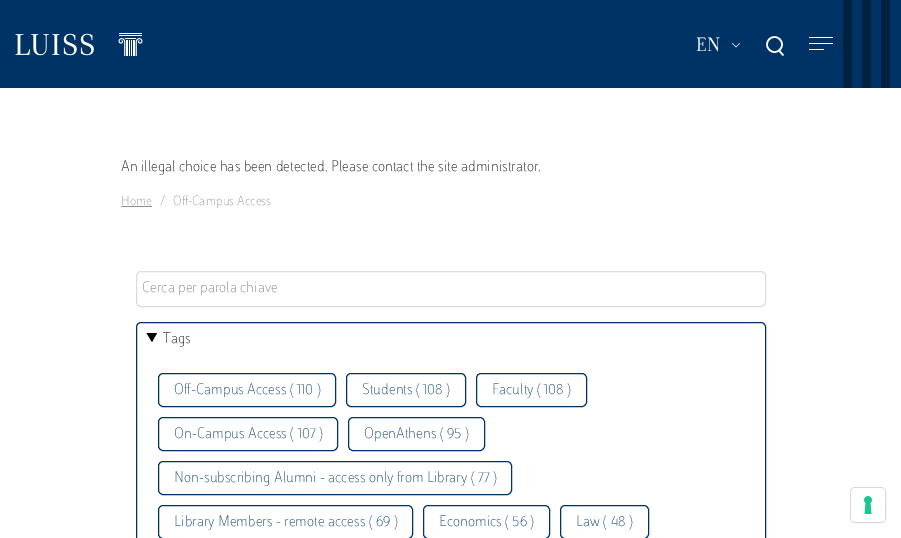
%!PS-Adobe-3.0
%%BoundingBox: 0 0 901 538
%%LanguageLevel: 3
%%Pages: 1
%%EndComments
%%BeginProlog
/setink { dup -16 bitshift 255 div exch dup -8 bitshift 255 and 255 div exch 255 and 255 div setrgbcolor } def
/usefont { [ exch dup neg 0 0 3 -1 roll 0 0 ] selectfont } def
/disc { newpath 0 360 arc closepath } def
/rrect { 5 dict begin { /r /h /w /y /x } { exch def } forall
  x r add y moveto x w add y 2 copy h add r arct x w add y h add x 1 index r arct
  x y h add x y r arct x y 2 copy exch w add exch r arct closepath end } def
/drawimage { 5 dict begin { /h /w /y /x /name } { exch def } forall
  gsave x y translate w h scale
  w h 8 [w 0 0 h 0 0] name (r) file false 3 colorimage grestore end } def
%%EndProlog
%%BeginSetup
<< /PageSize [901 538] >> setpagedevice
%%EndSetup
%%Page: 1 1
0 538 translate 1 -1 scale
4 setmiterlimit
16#FFFFFF setink
0 0 901 538 rectfill
16#003365 setink
0 0 901 88 rectfill
(img1.raw) 15 33 128 23 drawimage
/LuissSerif-Regular 20 usefont
16#FFFFFF setink
696 51 moveto (EN) show
(img2.raw) 732 43 8 5 drawimage
1.6 setlinewidth
774.5 44.5 7.5 disc stroke
1 setlinecap
1 setlinejoin
783 55 moveto 779 50.5 lineto stroke
809 37 24 1 0.5 rrect fill
809 43 24 1 0.5 rrect fill
809 49 15 1 0.5 rrect fill
[
    [843 0 9 88 16#002240]
    [862 0 9 88 16#002240]
    [881 0 9 88 16#002240]
] { aload pop setink rectfill } forall
/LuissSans-Thin 16 usefont
16#010101 setink
121 171 moveto (An illegal choice has been detected. Please contact the site administrator.) show
/LuissSans-Thin 14 usefont
16#909090 setink
121 205 moveto (Home) show
121 206 31 1 rectfill
16#6C757D setink
160 205 moveto (/) show
16#909090 setink
173 205 moveto (Off-Campus Access) show
16#DDDDDD setink
1 setlinewidth
0 setlinecap
0 setlinejoin
136.5 271.5 629 35 4.5 rrect stroke
/LuissSans-Thin 16 usefont
16#757575 setink
142 292 moveto (Cerca per parola chiave) show
16#003365 setink
136.5 322.5 629 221 4.5 rrect stroke
16#010101 setink
146.5 333 moveto 157 333 lineto 152 342 lineto closepath fill
163 343 moveto (Tags) show
16#003365 setink
158.5 373.5 177 33 4.5 rrect stroke
174 394 moveto (Off-Campus Access \( 110 \)) show
346.5 373.5 119 33 4.5 rrect stroke
362 394 moveto (Students \( 108 \)) show
476.5 373.5 110 33 4.5 rrect stroke
492 394 moveto (Faculty \( 108 \)) show
158.5 417.5 179 33 4.5 rrect stroke
174 438 moveto (On-Campus Access \( 107 \)) show
348.5 417.5 136 33 4.5 rrect stroke
364 438 moveto (OpenAthens \( 95 \)) show
158.5 461.5 353 33 4.5 rrect stroke
174 482 moveto (Non-subscribing Alumni - access only from Library \( 77 \)) show
158.5 505.5 254 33 4.5 rrect stroke
174 526 moveto (Library Members - remote access \( 69 \)) show
423.5 505.5 126 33 4.5 rrect stroke
439 526 moveto (Economics \( 56 \)) show
560.5 505.5 88 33 4.5 rrect stroke
576 526 moveto (Law \( 48 \)) show
16#D9D9D9 setink
850.5 487.5 35 35 4.5 rrect stroke
16#FFFFFF setink
851 488 34 34 4 rrect fill
(img3.raw) 864 496 8 18 drawimage
showpage
%%EOF
